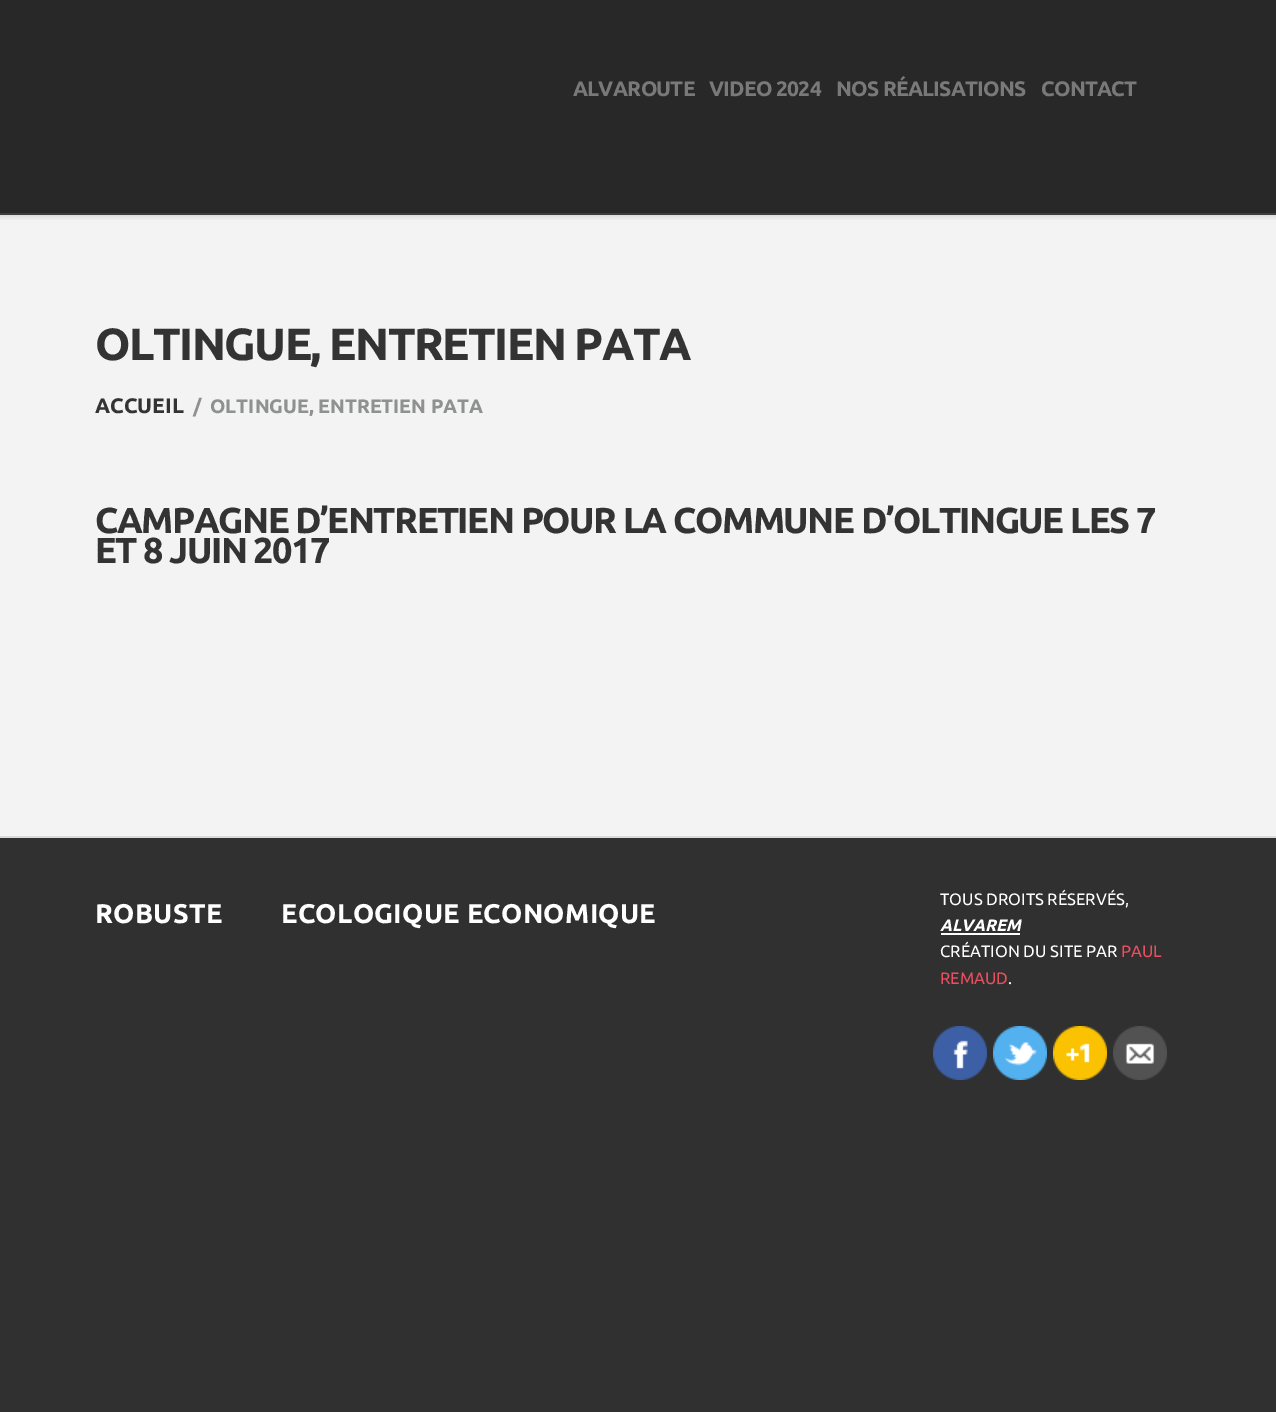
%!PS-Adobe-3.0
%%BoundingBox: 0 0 1276 1412
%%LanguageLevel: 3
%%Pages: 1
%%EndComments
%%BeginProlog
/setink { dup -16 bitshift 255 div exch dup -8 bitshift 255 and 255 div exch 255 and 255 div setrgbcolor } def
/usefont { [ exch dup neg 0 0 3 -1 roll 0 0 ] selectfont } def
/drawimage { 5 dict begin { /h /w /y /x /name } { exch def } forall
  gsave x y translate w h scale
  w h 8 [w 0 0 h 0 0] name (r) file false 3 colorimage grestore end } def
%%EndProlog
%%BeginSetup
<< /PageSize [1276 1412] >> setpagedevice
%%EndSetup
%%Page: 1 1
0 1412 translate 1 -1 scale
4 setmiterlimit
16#303030 setink
0 0 1276 1412 rectfill
16#282828 setink
0 0 1276 213 rectfill
16#3E3E3E setink
0 213 1276 2 rectfill
/Ubuntu-Bold 21 usefont
16#797979 setink
573 96 moveto -0.75 0 (ALVAROUTE) ashow
709 96 moveto -0.75 0 (VIDEO 2024) ashow
836 96 moveto -0.75 0 (NOS RÉALISATIONS) ashow
1041 96 moveto -0.75 0 (CONTACT) ashow
16#F3F3F3 setink
0 215 1276 621 rectfill
(img1.raw) 0 215 1276 5 drawimage
/Ubuntu-Bold 45 usefont
16#333333 setink
95 360 moveto -1.5 0 (OLTINGUE, ENTRETIEN PATA) ashow
/Ubuntu-Bold 21 usefont
95 413 moveto (ACCUEIL) show
/Ubuntu-Bold 19.5 usefont
16#8F9090 setink
193 413 moveto (/) show
210 413 moveto (OLTINGUE, ENTRETIEN PATA) show
/Ubuntu-Bold 36 usefont
16#333333 setink
95 533 moveto -1.5 0 (CAMPAGNE D’ENTRETIEN POUR LA COMMUNE D’OLTINGUE LES 7) ashow
95 563 moveto -1.5 0 (ET 8 JUIN 2017) ashow
16#DADADA setink
0 836 1276 2 rectfill
/Ubuntu-Bold 27 usefont
16#FFFFFF setink
95 923 moveto 0.3 0 (ROBUSTE) ashow
281 923 moveto 0.3 0 (ECOLOGIQUE ECONOMIQUE) ashow
/Ubuntu-Regular 16.5 usefont
940 905 moveto (TOUS DROITS RÉSERVÉS,) show
/Ubuntu-BoldItalic 16.5 usefont
940 931 moveto (ALVAREM) show
941 933 79 2 rectfill
/Ubuntu-Regular 16.5 usefont
940 957 moveto (CRÉATION DU SITE PAR) show
16#EA4F5F setink
1121 957 moveto (PAUL) show
940 984 moveto (REMAUD) show
16#FFFFFF setink
1008 984 moveto (.) show
(img2.raw) 933 1026 54 54 drawimage
(img3.raw) 993 1026 54 54 drawimage
(img4.raw) 1053 1026 54 54 drawimage
(img5.raw) 1113 1026 54 54 drawimage
showpage
%%EOF
